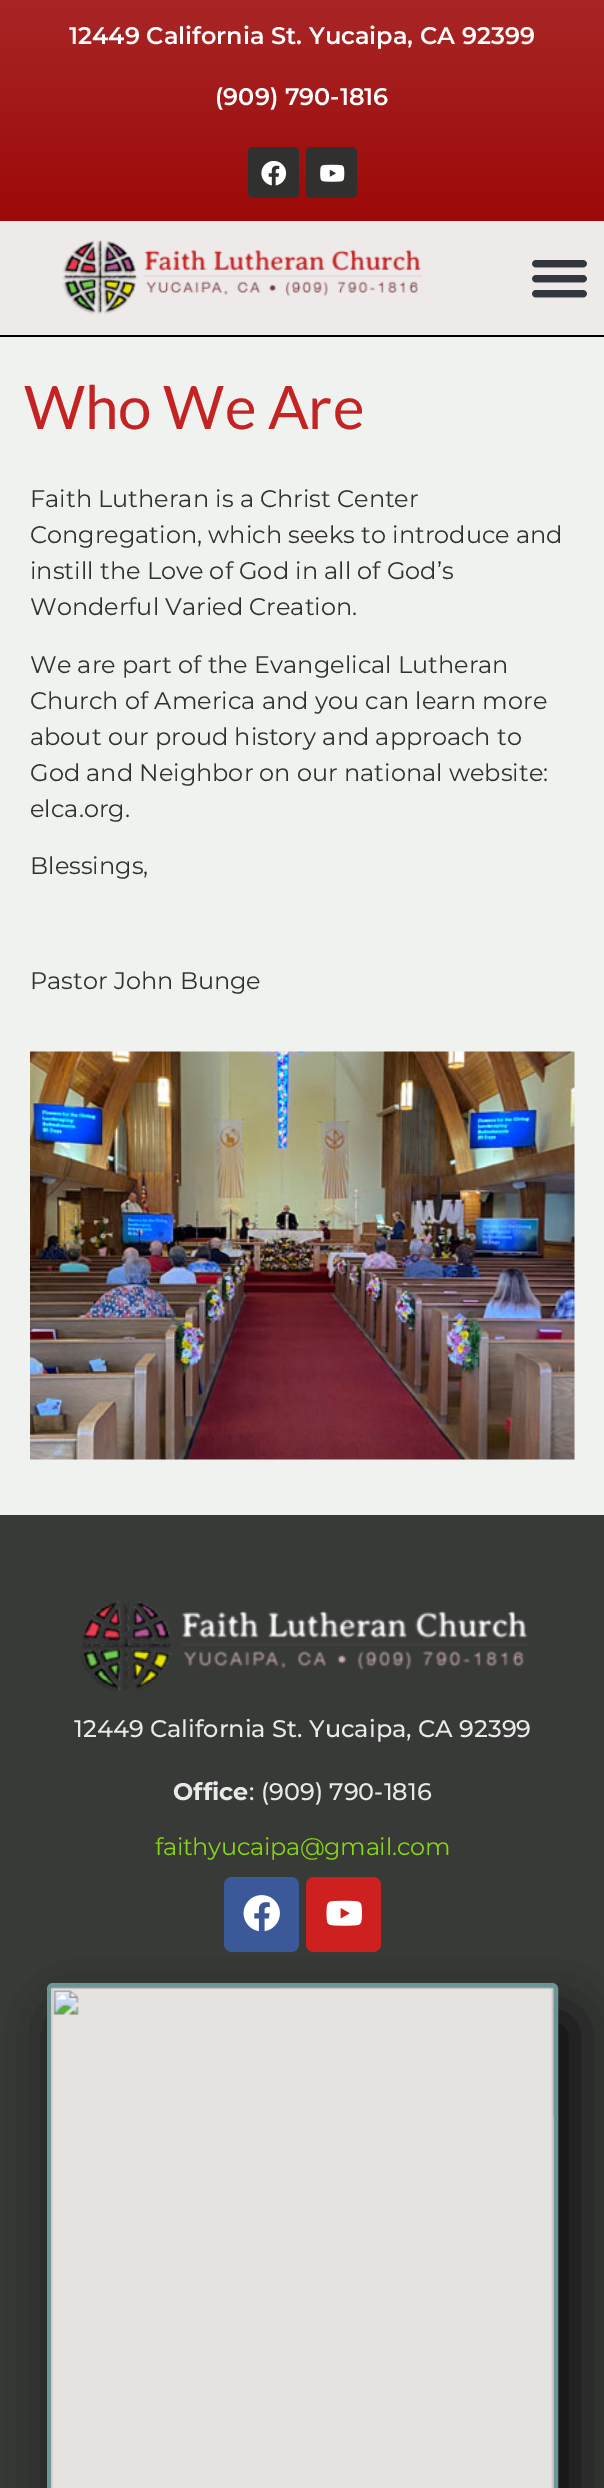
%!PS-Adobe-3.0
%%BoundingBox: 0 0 604 2488
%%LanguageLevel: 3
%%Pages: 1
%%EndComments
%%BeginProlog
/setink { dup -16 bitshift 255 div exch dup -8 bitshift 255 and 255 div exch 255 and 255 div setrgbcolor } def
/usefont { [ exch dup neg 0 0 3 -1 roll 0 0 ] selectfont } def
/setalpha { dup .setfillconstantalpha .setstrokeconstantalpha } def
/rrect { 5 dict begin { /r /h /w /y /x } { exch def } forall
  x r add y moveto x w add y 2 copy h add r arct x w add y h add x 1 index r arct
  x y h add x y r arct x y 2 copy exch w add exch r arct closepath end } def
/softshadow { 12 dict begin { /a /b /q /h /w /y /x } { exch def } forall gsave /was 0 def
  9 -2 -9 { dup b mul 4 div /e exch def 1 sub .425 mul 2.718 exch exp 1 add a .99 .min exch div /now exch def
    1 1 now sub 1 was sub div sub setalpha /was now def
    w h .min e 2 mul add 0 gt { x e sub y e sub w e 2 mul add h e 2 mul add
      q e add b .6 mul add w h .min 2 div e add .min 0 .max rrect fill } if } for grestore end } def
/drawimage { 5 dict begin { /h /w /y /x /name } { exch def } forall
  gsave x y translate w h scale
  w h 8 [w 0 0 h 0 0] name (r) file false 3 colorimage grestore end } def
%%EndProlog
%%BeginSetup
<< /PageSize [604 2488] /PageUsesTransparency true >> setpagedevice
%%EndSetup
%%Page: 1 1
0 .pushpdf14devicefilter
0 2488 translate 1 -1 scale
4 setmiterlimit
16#F0F2EF setink
0 0 604 2488 rectfill
gsave 0 0 moveto 604 0 lineto 604 221 lineto 0 221 lineto closepath clip newpath
<< /ShadingType 2 /ColorSpace /DeviceRGB /Coords [302 0 302 221] /Extend [true true] /Function << /FunctionType 2 /Domain [0 1] /C0 [0.663 0.149 0.149] /C1 [0.612 0.035 0.031] /N 1 >> >> shfill grestore
/Montserrat-SemiBold 24 usefont
16#FFFEFE setink
69 44 moveto (12449 California St. Yucaipa, CA 92399) show
215 105 moveto (\(909\) 790-1816) show
16#30312E setink
248 147 51 51 5 rrect fill
(img1.raw) 261 161 26 25 drawimage
306 147 51 51 5 rrect fill
(img2.raw) 320 164 25 18 drawimage
16#EEEAEA setink
0 221 604 114 rectfill
16#000000 setink
0 335 604 2 rectfill
(img3.raw) 62 240 360 74 drawimage
(img4.raw) 532 260 55 38 drawimage
/Lato-Regular 60 usefont
16#C32323 setink
24 429 moveto (Who We Are) show
/Montserrat-Regular 24 usefont
16#31322F setink
[
    [(Faith Lutheran is a Christ Center) 30 507]
    [(Congregation, which seeks to introduce and) 30 543]
    [(instill the Love of God in all of God’s) 30 579]
    [(Wonderful Varied Creation.) 30 615]
    [(We are part of the Evangelical Lutheran) 30 673]
    [(Church of America and you can learn more) 30 709]
    [(about our proud history and approach to) 30 745]
    [(God and Neighbor on our national website:) 30 781]
    [(elca.org.) 30 817]
    [(Blessings,) 30 874]
    [(Pastor John Bunge) 30 989]
] { aload pop moveto show } forall
(img5.raw) 30 1051 545 409 drawimage
16#383A38 setink
0 1515 604 973 rectfill
(img6.raw) 81 1600 447 91 drawimage
/Montserrat-Medium 24 usefont
16#E9E9E9 setink
74 1737 moveto (12449 California St. Yucaipa, CA 92399) show
/Montserrat-Bold 24 usefont
173 1800 moveto (Office) show
/Montserrat-Medium 24 usefont
249 1800 moveto (: \(909\) 790-1816) show
/Montserrat-Regular 24 usefont
16#86D711 setink
155 1855 moveto -0.3 0 (faithyucaipa@gmail.com) ashow
16#3B5998 setink
224 1877 75 75 8 rrect fill
(img7.raw) 243 1895 37 37 drawimage
16#CD201F setink
306 1877 75 75 8 rrect fill
(img8.raw) 326 1900 36 26 drawimage
16#000000 setink
60 2015 515 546 8 25.5 0.8 softshadow
16#6C9595 setink
5 setlinewidth
49.5 1985.5 506 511 3.5 rrect stroke
(img9.raw) 51 1987 503 501 drawimage
.poppdf14devicefilter showpage
%%EOF
